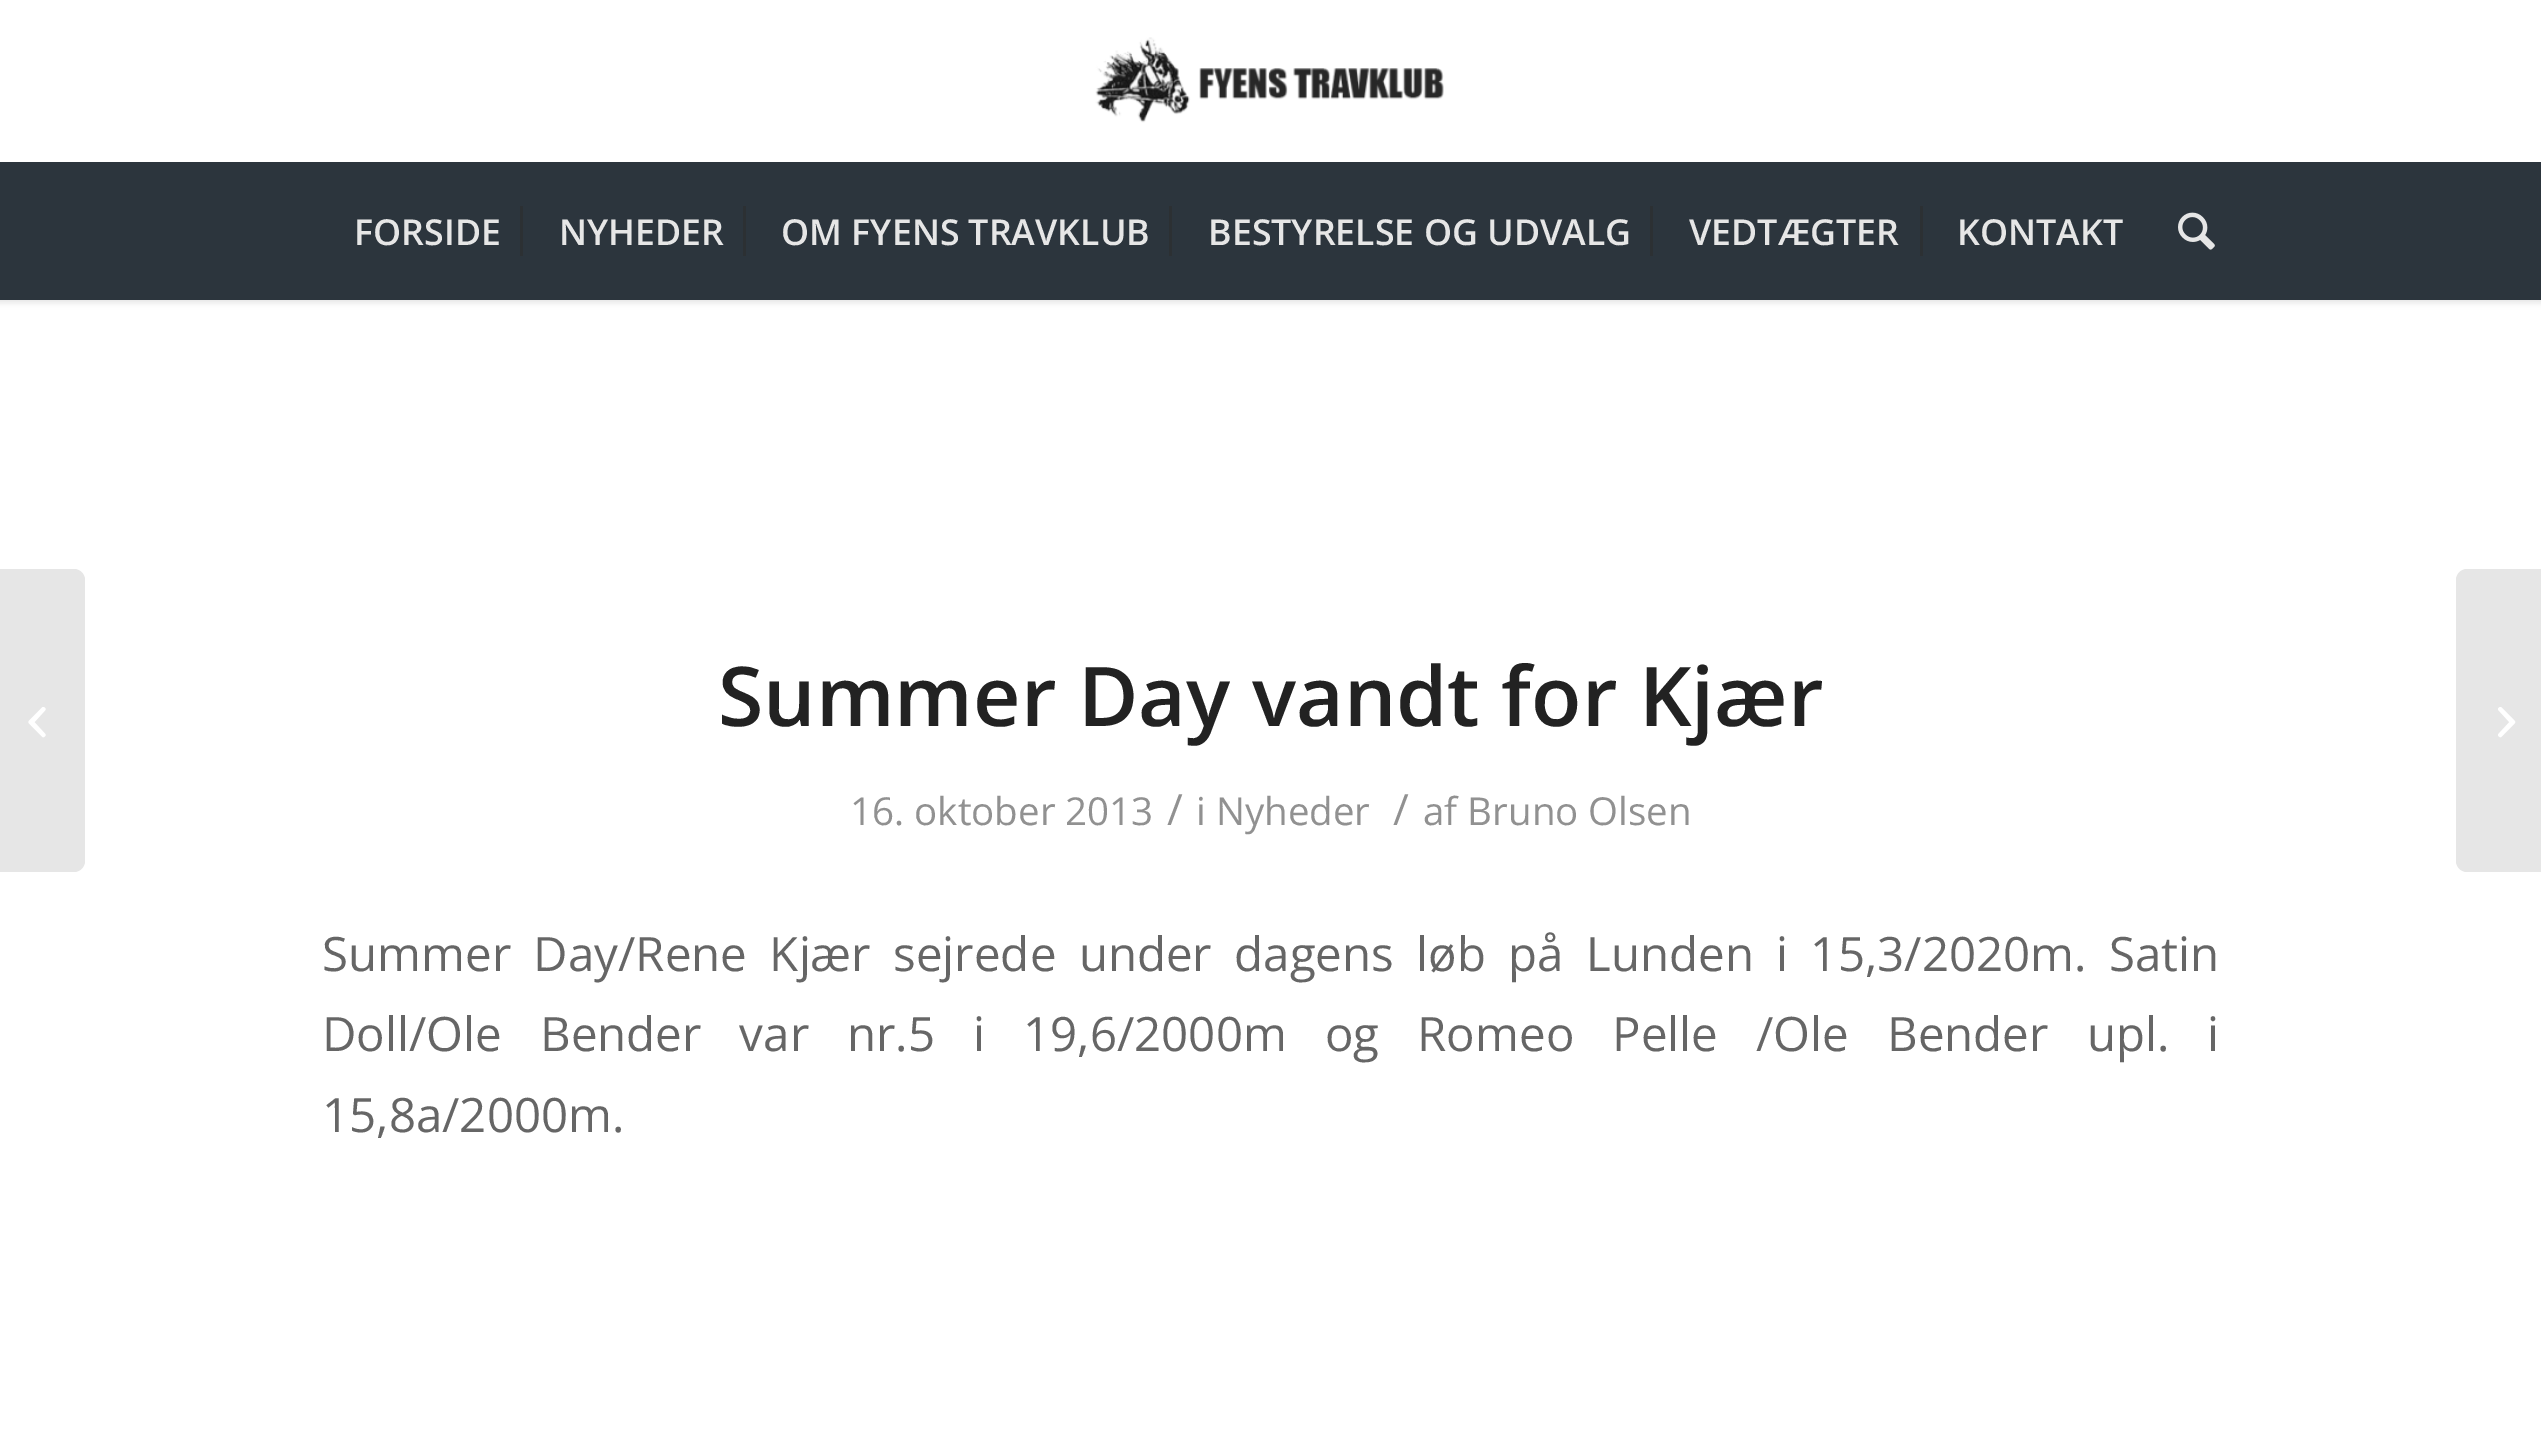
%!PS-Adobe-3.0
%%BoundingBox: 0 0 2541 1438
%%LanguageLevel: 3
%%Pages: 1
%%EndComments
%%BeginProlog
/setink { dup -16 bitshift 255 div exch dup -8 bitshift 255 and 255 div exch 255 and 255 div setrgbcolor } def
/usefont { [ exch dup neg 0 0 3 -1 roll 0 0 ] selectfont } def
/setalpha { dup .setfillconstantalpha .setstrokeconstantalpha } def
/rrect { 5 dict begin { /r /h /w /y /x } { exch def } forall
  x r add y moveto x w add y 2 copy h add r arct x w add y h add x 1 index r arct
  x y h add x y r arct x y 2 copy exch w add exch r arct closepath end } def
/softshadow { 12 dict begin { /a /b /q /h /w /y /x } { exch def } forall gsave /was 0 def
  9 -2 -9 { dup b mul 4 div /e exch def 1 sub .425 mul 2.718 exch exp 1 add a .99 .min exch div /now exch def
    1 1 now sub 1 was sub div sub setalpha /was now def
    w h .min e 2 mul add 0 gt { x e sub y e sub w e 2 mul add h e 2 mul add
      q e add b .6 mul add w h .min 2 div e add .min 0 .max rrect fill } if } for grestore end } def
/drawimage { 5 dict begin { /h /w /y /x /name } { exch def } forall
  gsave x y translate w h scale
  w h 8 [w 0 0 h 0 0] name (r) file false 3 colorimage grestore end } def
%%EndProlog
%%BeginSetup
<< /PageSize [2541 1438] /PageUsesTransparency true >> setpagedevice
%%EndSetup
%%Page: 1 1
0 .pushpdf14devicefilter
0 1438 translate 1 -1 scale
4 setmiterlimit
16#FFFFFF setink
0 0 2541 1438 rectfill
16#000000 setink
-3 -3 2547 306 0 3 0.1 softshadow
16#FFFFFF setink
0 0 2541 162 rectfill
(img1.raw) 1095 37 349 86 drawimage
16#2C353D setink
0 162 2541 138 rectfill
/OpenSans-SemiBold 35.75 usefont
16#E6E6E6 setink
354 245 moveto (FORSIDE) show
559 245 moveto (NYHEDER) show
16#2C3033 setink
520 206 3 50 rectfill
16#E6E6E6 setink
781 245 moveto (OM FYENS TRAVKLUB) show
16#2C3033 setink
743 206 3 50 rectfill
16#E6E6E6 setink
1208 245 moveto (BESTYRELSE OG UDVALG) show
16#2C3033 setink
1169 206 3 50 rectfill
16#E6E6E6 setink
1689 245 moveto (VEDTÆGTER) show
16#2C3033 setink
1650 206 3 50 rectfill
16#E6E6E6 setink
1957 245 moveto (KONTAKT) show
16#2C3033 setink
1920 206 3 50 rectfill
(img2.raw) 2178 212 37 38 drawimage
16#E6E6E6 setink
0 569 moveto 74 569 lineto 80 569 85 574 85 580 curveto 85 861 lineto 85 867 80 872 74 872 curveto 0 872 lineto closepath fill
(img3.raw) 28 707 18 31 drawimage
/OpenSans-SemiBold 82.5 usefont
16#222222 setink
718 726 moveto (Summer Day vandt for Kjær) show
/OpenSans-Regular 38.5 usefont
16#919191 setink
850 825 moveto (16. oktober 2013) show
/OpenSans-Regular 43 usefont
1167 825 moveto (/) show
/OpenSans-Regular 38.5 usefont
1196 825 moveto (i Nyheder) show
/OpenSans-Regular 43 usefont
1393 825 moveto (/) show
/OpenSans-Regular 38.5 usefont
1423 825 moveto (af Bruno Olsen) show
/OpenSans-Regular 47.45 usefont
16#666666 setink
322 971 moveto 10.1 0 32 (Summer Day/Rene Kjær sejrede under dagens løb på Lunden i 15,3/2020m. Satin) widthshow
322 1051 moveto 25.75 0 32 (Doll/Ole Bender var nr.5 i 19,6/2000m og Romeo Pelle /Ole Bender upl. i) widthshow
322 1132 moveto (15,8a/2000m.) show
16#E6E6E6 setink
2467 569 moveto 2541 569 lineto 2541 872 lineto 2467 872 lineto 2461 872 2456 867 2456 861 curveto 2456 580 lineto 2456 574 2461 569 2467 569 curveto closepath fill
(img4.raw) 2498 707 18 31 drawimage
.poppdf14devicefilter showpage
%%EOF
